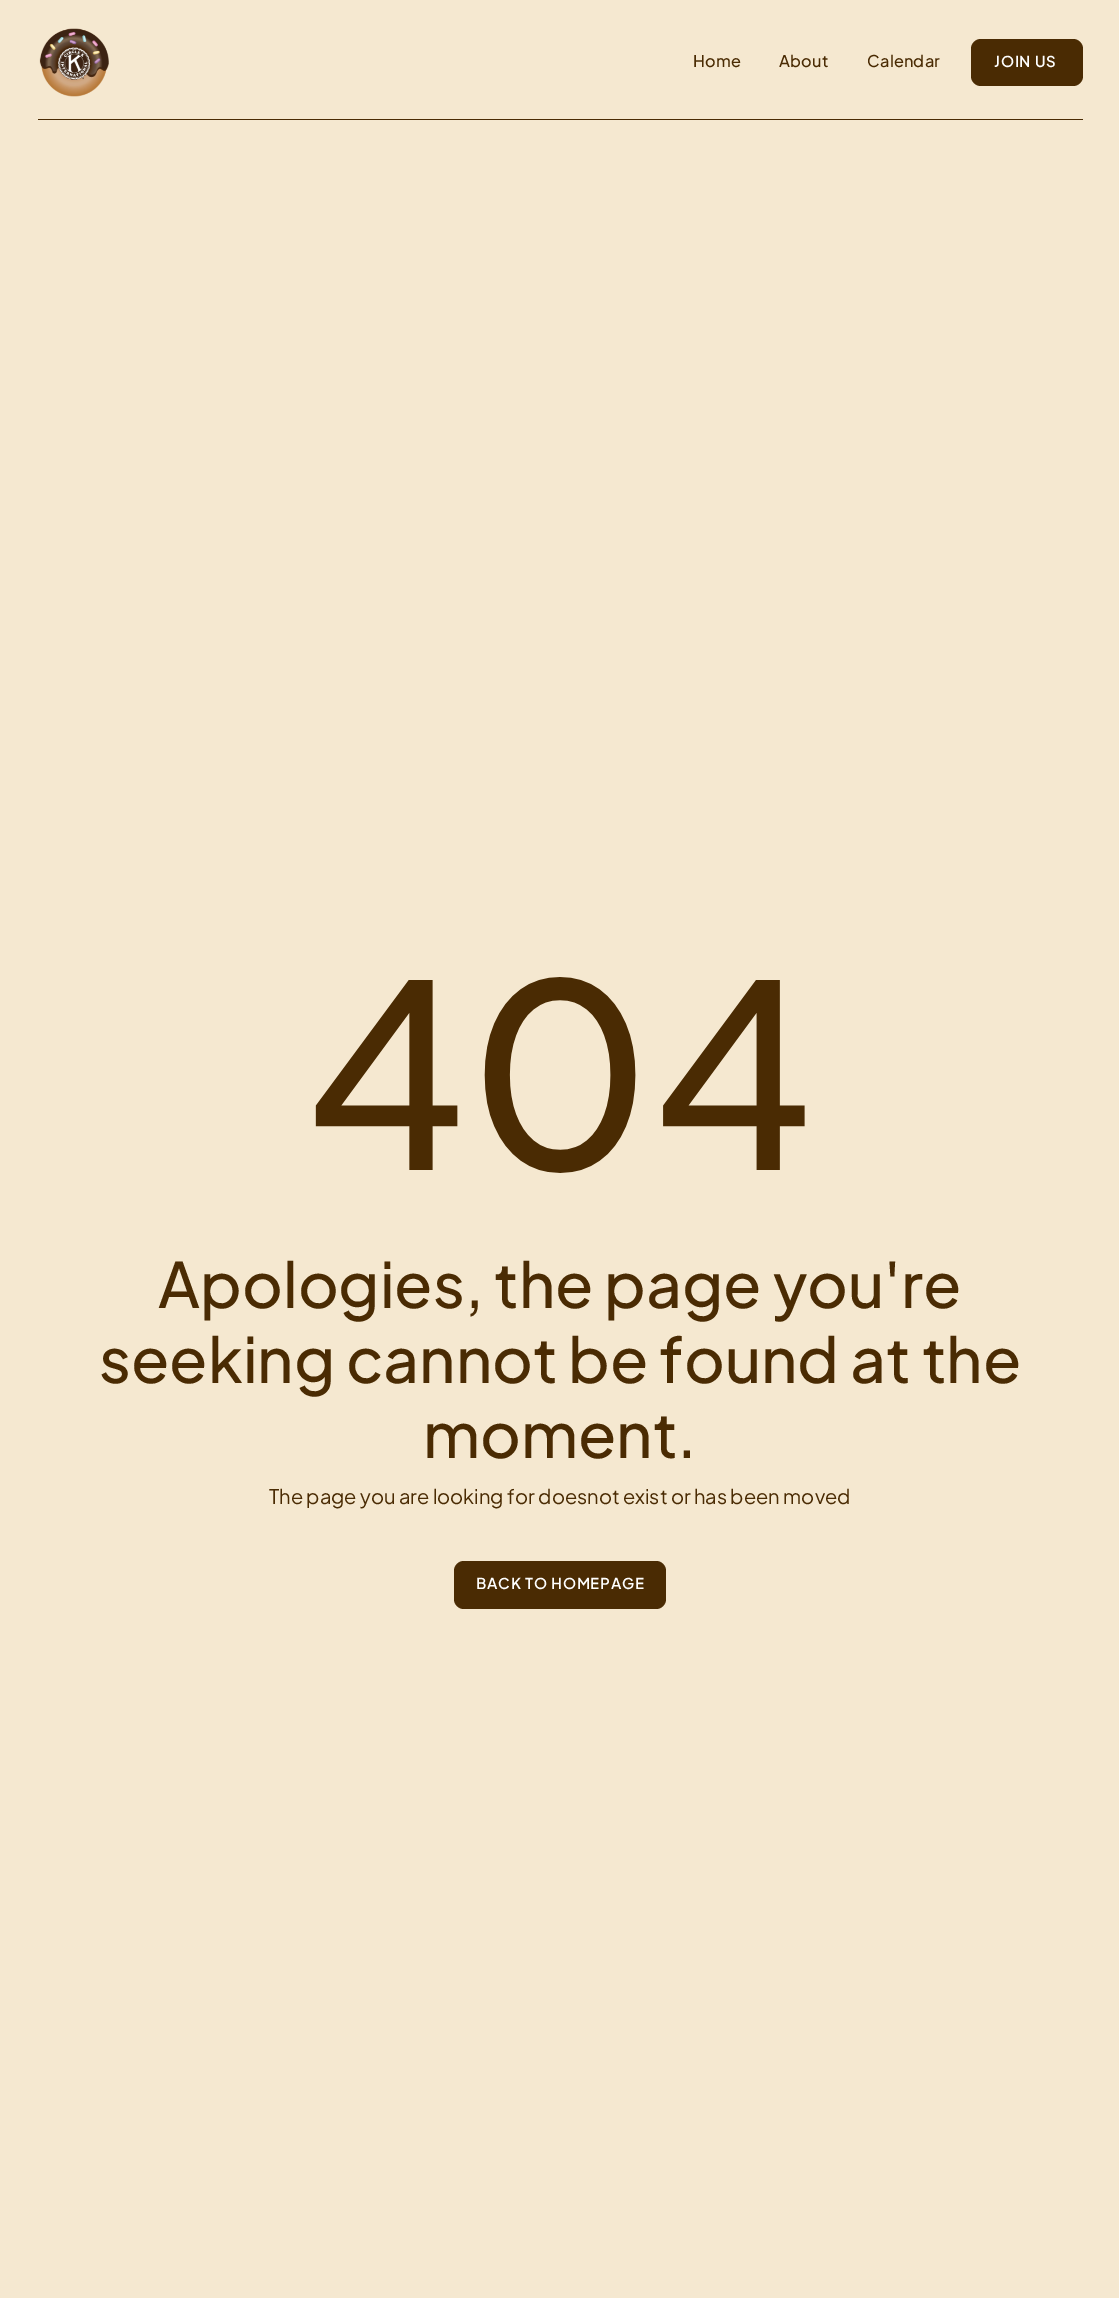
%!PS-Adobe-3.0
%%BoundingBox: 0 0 1119 2298
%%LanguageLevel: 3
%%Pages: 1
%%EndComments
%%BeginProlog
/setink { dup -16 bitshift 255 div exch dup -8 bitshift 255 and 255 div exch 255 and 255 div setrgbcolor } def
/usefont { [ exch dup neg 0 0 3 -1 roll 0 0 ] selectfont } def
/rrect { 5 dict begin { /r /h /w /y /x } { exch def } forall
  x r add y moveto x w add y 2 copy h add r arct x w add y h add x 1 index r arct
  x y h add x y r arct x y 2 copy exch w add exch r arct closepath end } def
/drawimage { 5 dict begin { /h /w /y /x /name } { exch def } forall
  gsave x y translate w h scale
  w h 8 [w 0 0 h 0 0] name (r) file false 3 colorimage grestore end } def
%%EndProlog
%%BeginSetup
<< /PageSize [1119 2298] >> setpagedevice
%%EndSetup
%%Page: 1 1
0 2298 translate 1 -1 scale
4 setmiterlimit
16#F5E8D0 setink
0 0 1119 2298 rectfill
(img1.raw) 39 28 70 69 drawimage
/PlusJakartaSans-Medium 16.25 usefont
16#4A2B03 setink
693 67 moveto 0.25 0 (Home) ashow
779 67 moveto 0.25 0 (About) ashow
867 67 moveto 0.25 0 (Calendar) ashow
971 39 112 47 10 rrect fill
/PlusJakartaSans-SemiBold 15 usefont
16#FFFFFF setink
994 67 moveto 0.75 0 (JOIN US) ashow
16#4A2B03 setink
38 119 1045 1 rectfill
(img2.raw) 315 977 490 196 drawimage
/PlusJakartaSans-Medium 62.5 usefont
[
    [(Apologies, the page you're) 158 1308]
    [(seeking cannot be found at the) 99 1383]
    [(moment.) 423 1458]
] { aload pop moveto show } forall
/PlusJakartaSans-Regular 20 usefont
269 1504 moveto (The page you are looking for doesnot exist or has been moved) show
454 1561 212 48 10 rrect fill
/PlusJakartaSans-SemiBold 15 usefont
16#FFFFFF setink
476 1589 moveto 0.75 0 (BACK TO HOMEPAGE) ashow
showpage
%%EOF
